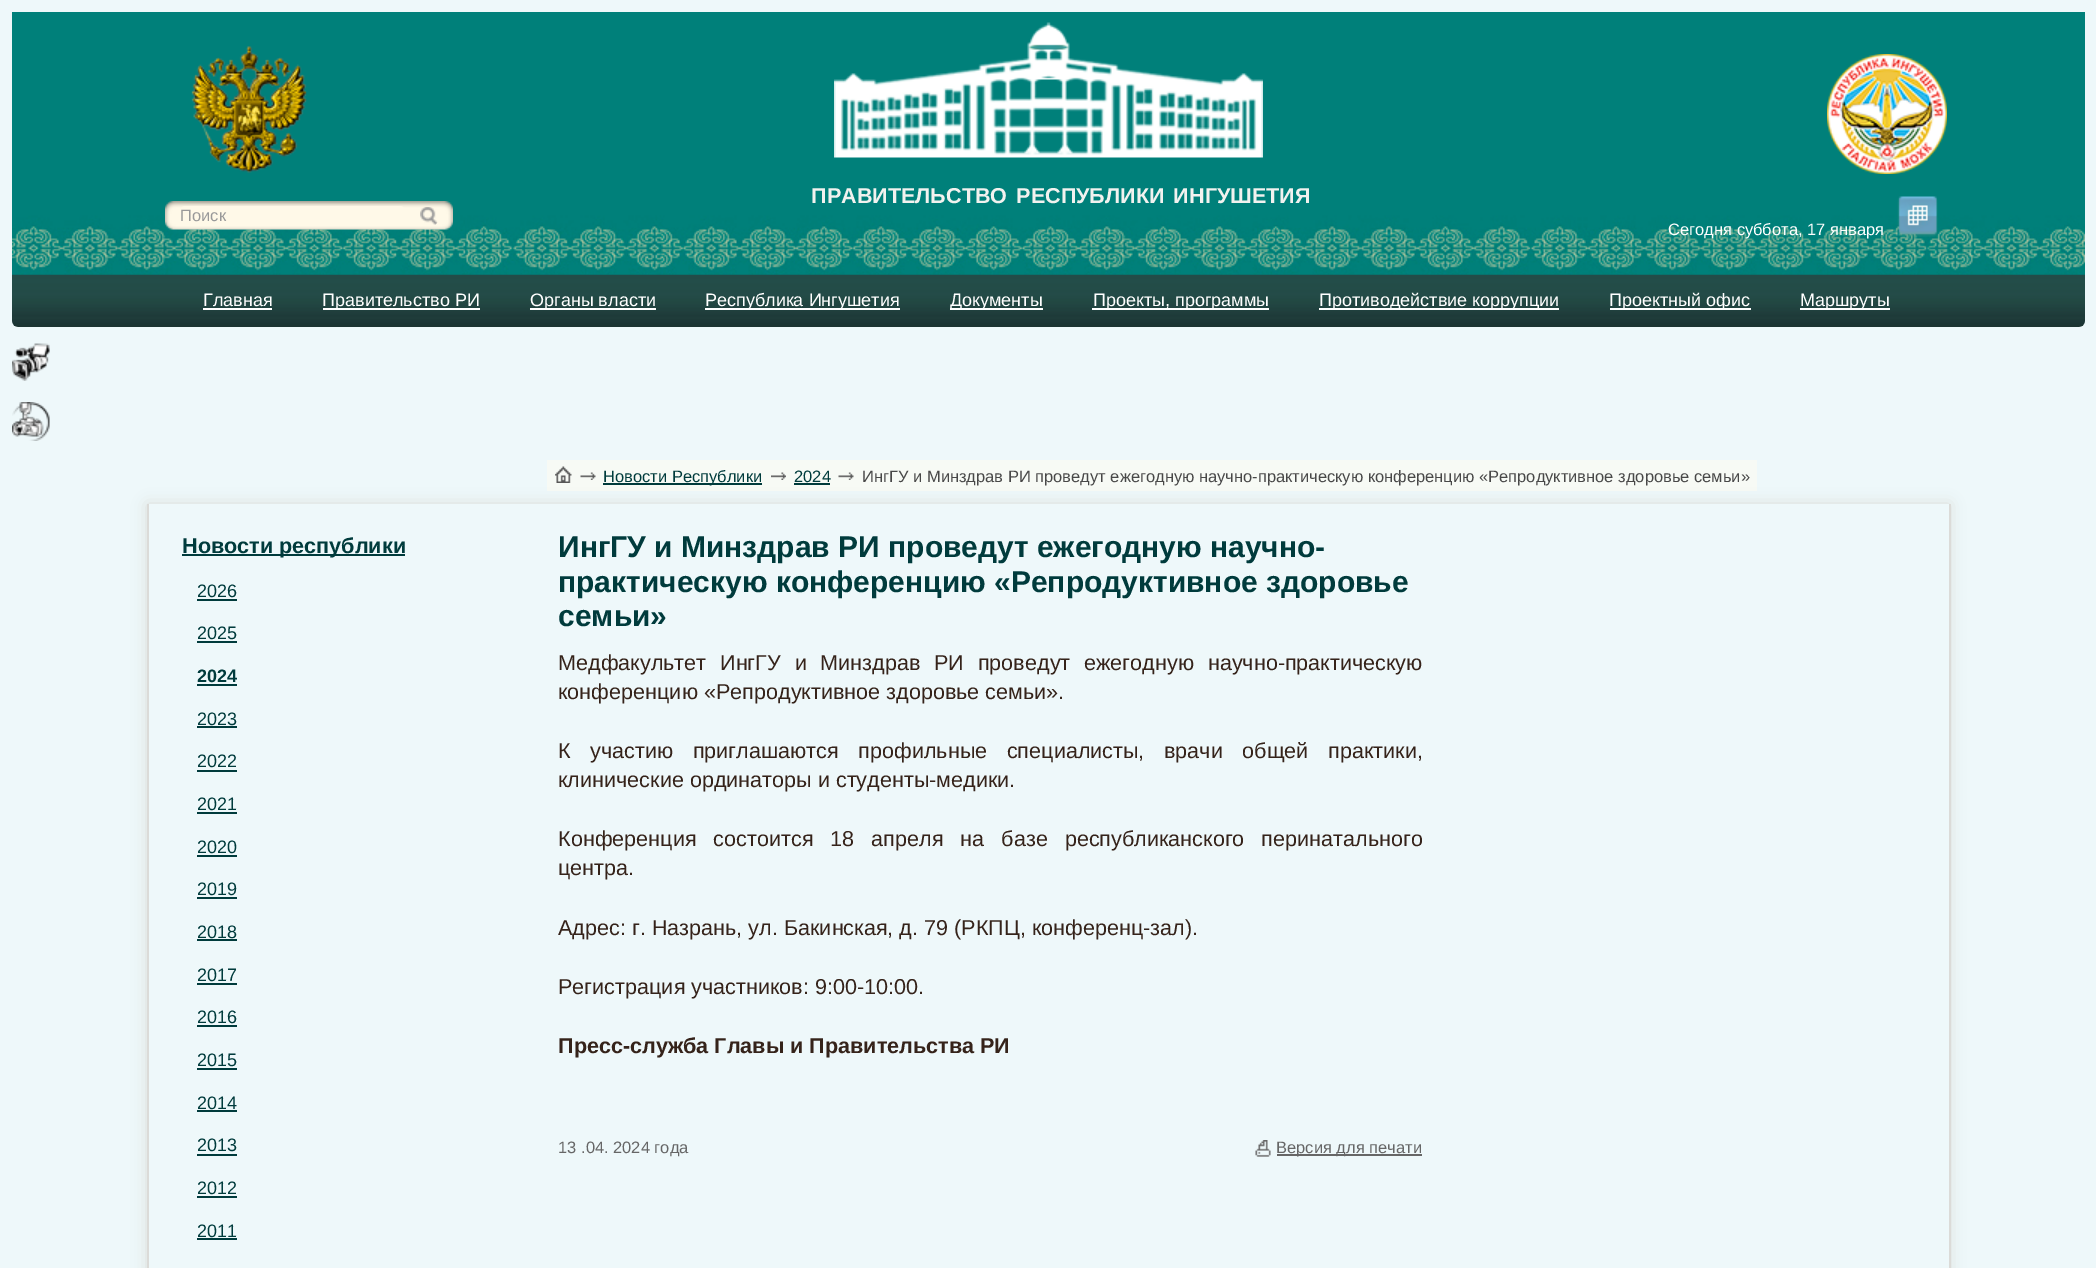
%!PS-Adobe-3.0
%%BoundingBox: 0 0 2096 1268
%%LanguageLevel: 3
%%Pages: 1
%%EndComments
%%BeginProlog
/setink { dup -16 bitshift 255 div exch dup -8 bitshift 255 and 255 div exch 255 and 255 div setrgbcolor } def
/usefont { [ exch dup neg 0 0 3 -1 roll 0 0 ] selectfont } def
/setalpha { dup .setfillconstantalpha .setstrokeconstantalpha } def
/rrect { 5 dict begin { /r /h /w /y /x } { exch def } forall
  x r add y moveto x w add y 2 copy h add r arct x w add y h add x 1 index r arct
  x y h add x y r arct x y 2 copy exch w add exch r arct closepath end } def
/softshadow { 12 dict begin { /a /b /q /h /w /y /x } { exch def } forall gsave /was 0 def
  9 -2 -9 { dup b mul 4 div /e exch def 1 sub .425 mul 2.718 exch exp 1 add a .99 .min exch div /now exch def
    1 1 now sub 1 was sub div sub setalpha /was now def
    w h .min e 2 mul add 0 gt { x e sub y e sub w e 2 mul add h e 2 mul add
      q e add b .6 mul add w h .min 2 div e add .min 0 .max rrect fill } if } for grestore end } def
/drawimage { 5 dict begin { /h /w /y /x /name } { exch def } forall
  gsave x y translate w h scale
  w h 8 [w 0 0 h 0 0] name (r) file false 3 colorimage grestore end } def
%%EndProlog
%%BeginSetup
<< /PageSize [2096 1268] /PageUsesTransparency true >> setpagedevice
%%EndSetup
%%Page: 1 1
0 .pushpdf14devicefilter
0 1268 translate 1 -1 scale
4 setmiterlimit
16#EEF8FA setink
0 0 2096 1268 rectfill
(img1.raw) 12 12 2073 263 drawimage
(img2.raw) 834 22 429 136 drawimage
/LiberationSans-Bold 21.6 usefont
16#F2F2EF setink
811 203 moveto 3 0 32 (ПРАВИТЕЛЬСТВО РЕСПУБЛИКИ ИНГУШЕТИЯ) widthshow
(img3.raw) 165 201 288 29 drawimage
16#FFF9E8 setink
180 206 225 19 5 rrect fill
/LiberationSans-Regular 16.5 usefont
16#999999 setink
180 221 moveto (Поиск) show
(img4.raw) 420 207 18 18 drawimage
(img5.raw) 191 46 116 127 drawimage
(img6.raw) 1827 54 120 120 drawimage
16#FFFFFF setink
1668 235 moveto (Сегодня суббота, 17 января) show
(img7.raw) 1897 196 41 41 drawimage
(img8.raw) 12 274 2073 53 drawimage
/LiberationSans-Regular 18 usefont
203 306 moveto (Главная) show
203 308 69 2 rectfill
323 308 157 2 rectfill
322 306 moveto (Правительство РИ) show
530 308 126 2 rectfill
530 306 moveto (Органы власти) show
705 308 195 2 rectfill
705 306 moveto (Республика Ингушетия) show
950 308 93 2 rectfill
950 306 moveto (Документы) show
1092 308 177 2 rectfill
1093 306 moveto (Проекты, программы) show
1319 308 240 2 rectfill
1319 306 moveto (Противодействие коррупции) show
1610 308 141 2 rectfill
1609 306 moveto (Проектный офис) show
1800 308 90 2 rectfill
1800 306 moveto (Маршруты) show
(img9.raw) 12 343 38 38 drawimage
(img10.raw) 12 402 38 39 drawimage
16#F7FAF5 setink
547 460 1210 31 rectfill
(img11.raw) 555 466 17 17 drawimage
(img12.raw) 580 472 16 8 drawimage
16#003B3C setink
603 483 159 2 rectfill
/LiberationSans-Regular 16.5 usefont
603 482 moveto (Новости Республики) show
(img13.raw) 771 472 15 8 drawimage
794 482 moveto (2024) show
794 483 36 2 rectfill
(img14.raw) 838 472 16 8 drawimage
16#484848 setink
862 482 moveto (ИнгГУ и Минздрав РИ проведут ежегодную научно-практическую конференцию «Репродуктивное здоровье семьи») show
gsave
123 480 moveto 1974 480 lineto 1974 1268 lineto 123 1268 lineto closepath 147 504 moveto 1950 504 lineto 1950 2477 lineto 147 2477 lineto closepath eoclip newpath
16#DBDBD8 setink
147 504 1803 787 0 7.5 1 softshadow
grestore
[
    [1949 504 2 764 16#DBDBD8]
    [147 504 2 764 16#DBDBD8]
    [182 554 223 2 16#003B3C]
] { aload pop setink rectfill } forall
/LiberationSans-Bold 21.6 usefont
182 553 moveto (Новости республики) show
/LiberationSans-Regular 18 usefont
197 597 moveto (2026) show
197 599 40 2 rectfill
197 639 moveto (2025) show
197 641 40 2 rectfill
/LiberationSans-Bold 18 usefont
197 682 moveto (2024) show
197 684 40 2 rectfill
/LiberationSans-Regular 18 usefont
197 725 moveto (2023) show
197 726 40 2 rectfill
197 767 moveto (2022) show
197 770 40 2 rectfill
197 810 moveto (2021) show
197 812 40 2 rectfill
197 853 moveto (2020) show
197 855 40 2 rectfill
197 895 moveto (2019) show
197 897 40 2 rectfill
197 938 moveto (2018) show
197 939 40 2 rectfill
197 981 moveto (2017) show
197 983 40 2 rectfill
197 1023 moveto (2016) show
197 1025 40 2 rectfill
197 1066 moveto (2015) show
197 1068 40 2 rectfill
197 1109 moveto (2014) show
197 1110 40 2 rectfill
197 1151 moveto (2013) show
197 1154 40 2 rectfill
197 1194 moveto (2012) show
197 1196 40 2 rectfill
197 1237 moveto (2011) show
197 1238 40 2 rectfill
/LiberationSans-Bold 30 usefont
[
    [(ИнгГУ и Минздрав РИ проведут ежегодную научно-) 558 557]
    [(практическую конференцию «Репродуктивное здоровье) 558 592]
    [(семьи») 558 626]
] { aload pop moveto show } forall
/LiberationSans-Regular 21.6 usefont
16#35231A setink
558 670 moveto 7.75 0 32 (Медфакультет ИнгГУ и Минздрав РИ проведут ежегодную научно-практическую) widthshow
558 699 moveto (конференцию «Репродуктивное здоровье семьи».) show
558 758 moveto 13.5 0 32 (К участию приглашаются профильные специалисты, врачи общей практики,) widthshow
558 787 moveto (клинические ординаторы и студенты-медики.) show
558 846 moveto 11 0 32 (Конференция состоится 18 апреля на базе республиканского перинатального) widthshow
[
    [(центра.) 558 875]
    [(Адрес: г. Назрань, ул. Бакинская, д. 79 \(РКПЦ, конференц-зал\).) 558 935]
    [(Регистрация участников: 9:00-10:00.) 558 994]
] { aload pop moveto show } forall
/LiberationSans-Bold 21.6 usefont
558 1053 moveto (Пресс-служба Главы и Правительства РИ) show
/LiberationSans-Regular 16.5 usefont
16#666666 setink
558 1153 moveto (13 .04. 2024 года) show
(img15.raw) 1255 1140 16 17 drawimage
1277 1154 145 2 rectfill
1276 1153 moveto (Версия для печати) show
.poppdf14devicefilter showpage
%%EOF
